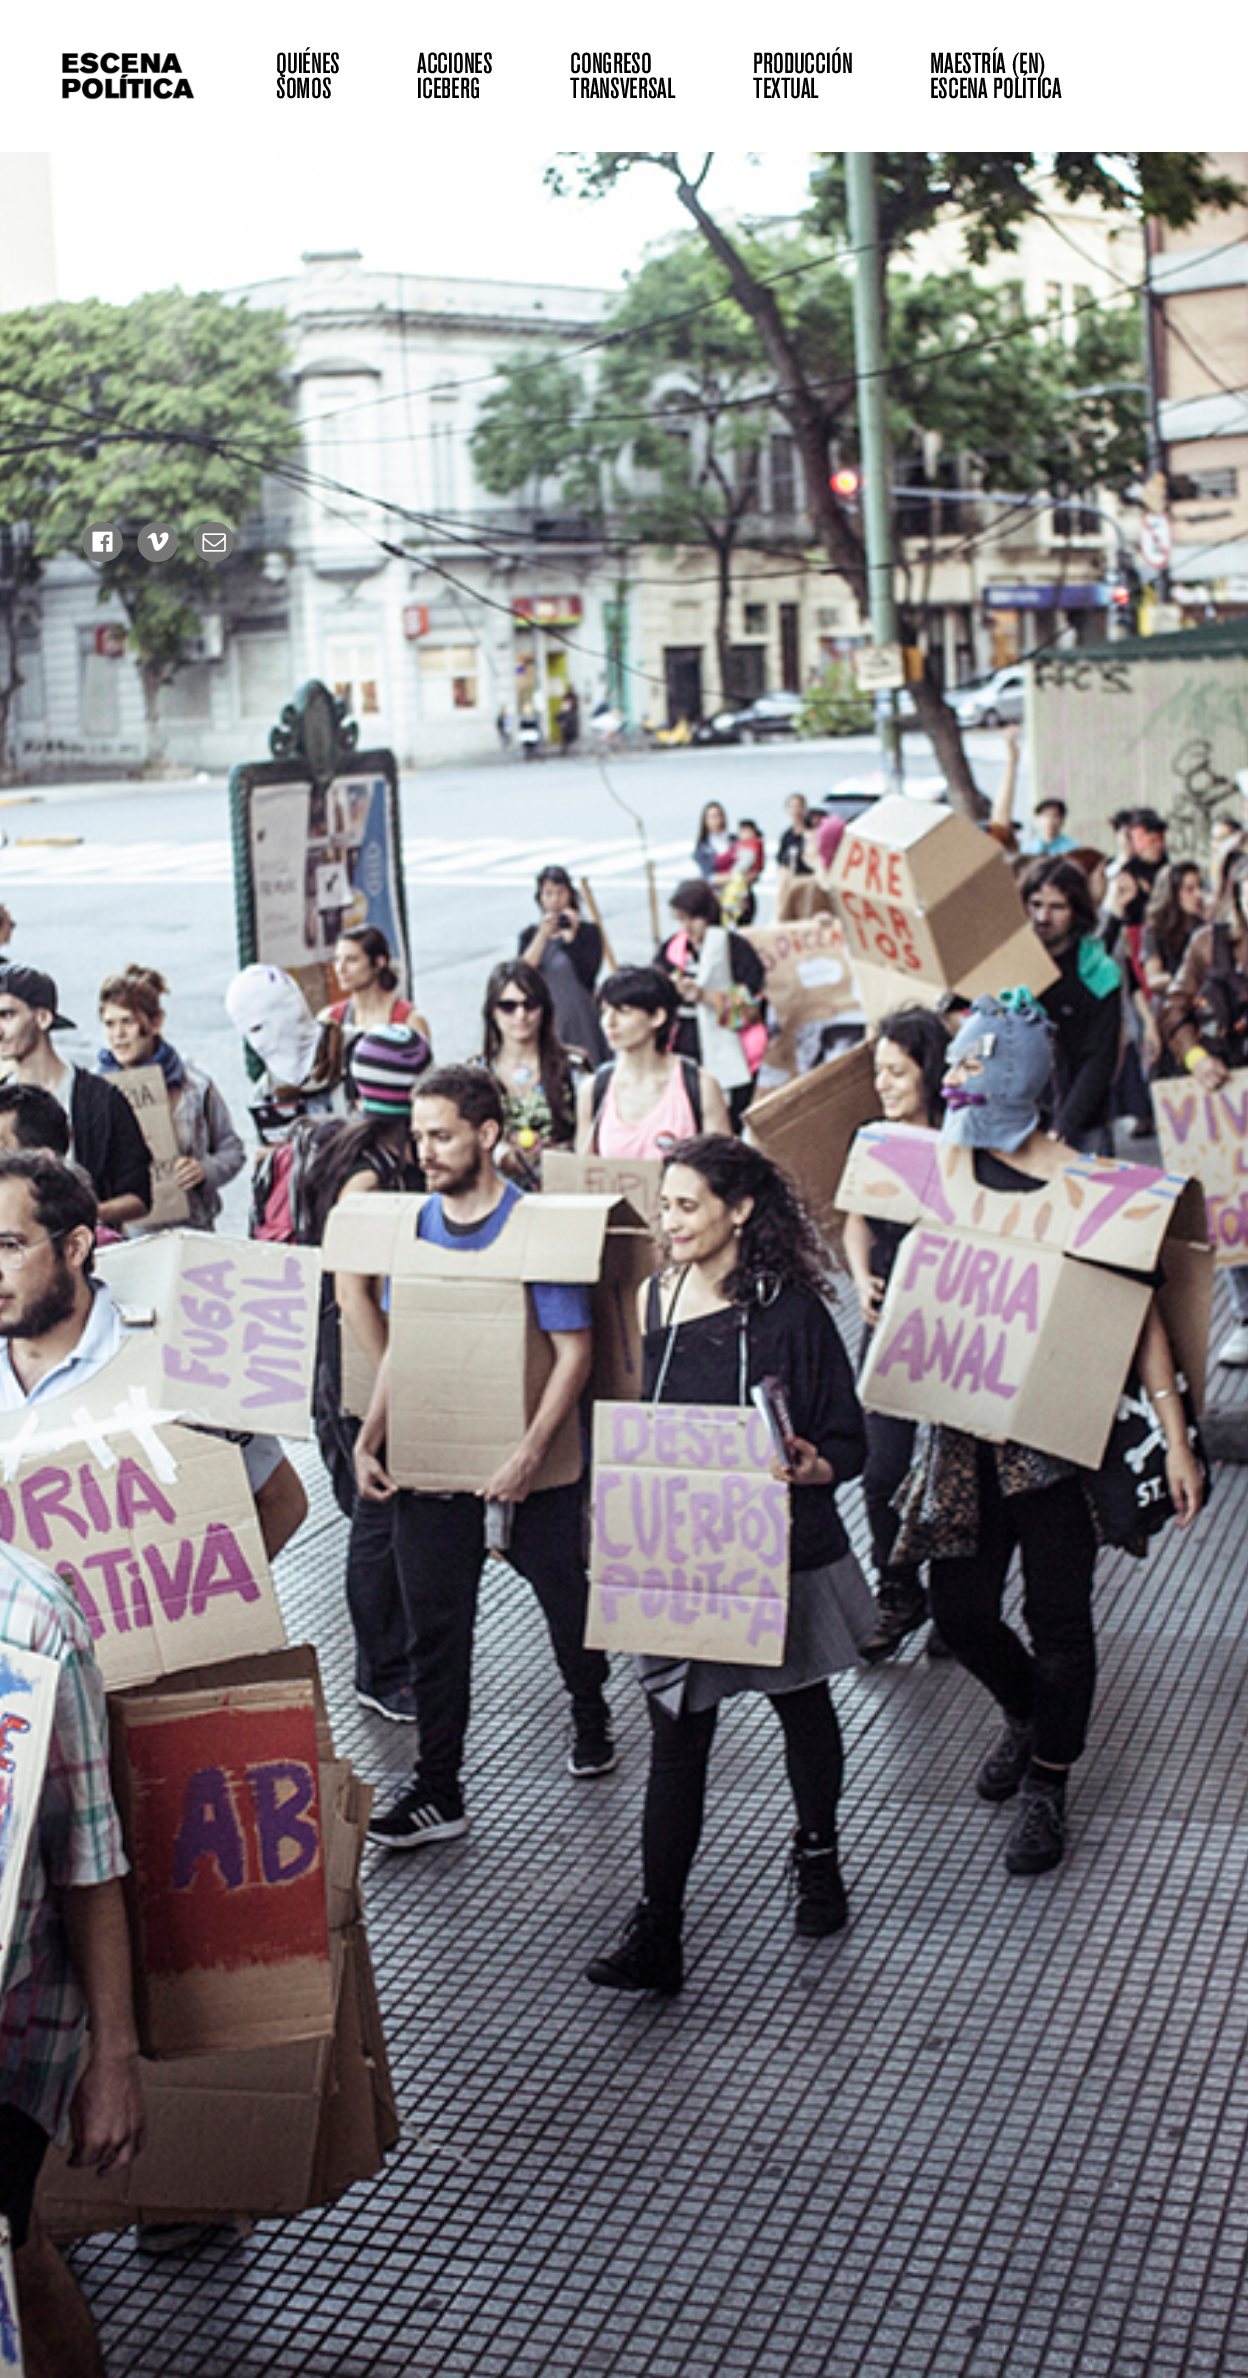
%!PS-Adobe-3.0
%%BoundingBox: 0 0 1248 2378
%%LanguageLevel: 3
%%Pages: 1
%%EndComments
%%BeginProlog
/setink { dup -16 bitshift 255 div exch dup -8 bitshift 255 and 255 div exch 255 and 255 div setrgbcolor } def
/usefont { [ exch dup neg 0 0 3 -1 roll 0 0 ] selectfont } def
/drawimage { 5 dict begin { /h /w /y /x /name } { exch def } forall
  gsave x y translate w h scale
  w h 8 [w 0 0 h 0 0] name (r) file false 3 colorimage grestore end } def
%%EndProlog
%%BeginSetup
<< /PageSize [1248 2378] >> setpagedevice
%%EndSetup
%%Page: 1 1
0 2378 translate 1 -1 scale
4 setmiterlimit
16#FFFFFF setink
0 0 1248 2378 rectfill
(img1.raw) 62 52 133 48 drawimage
/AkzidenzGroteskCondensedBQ-Medium 28.75 usefont
16#000000 setink
[
    [(QUIÉNES) 276 73]
    [(SOMOS) 276 98]
    [(ACCIONES) 417 73]
    [(ICEBERG) 417 98]
    [(CONGRESO) 570 73]
    [(TRANSVERSAL) 570 98]
    [(PRODUCCIÓN) 753 73]
    [(TEXTUAL) 753 98]
    [(MAESTRÍA \(EN\)) 930 73]
    [(ESCENA POLÍTICA) 930 98]
] { aload pop moveto show } forall
(img2.raw) 0 152 1248 2226 drawimage
16#777777 setink
120 532 moveto 122 535.5 122.5 539.5 122.5 543.5 curveto 121 563 95 569 85 552 curveto 83 548.5 82.5 544.5 82.5 540.5 curveto 84 521 110 515 120 532 curveto closepath fill
(img3.raw) 92 531 21 21 drawimage
175 532 moveto 177 535.5 177.5 539.5 177.5 543.5 curveto 176 563 150 569 140 552 curveto 138 548.5 137.5 544.5 137.5 540.5 curveto 139 521 165 515 175 532 curveto closepath fill
(img4.raw) 147 532 22 19 drawimage
231 532 moveto 233 535.5 234 539.5 233.5 543.5 curveto 232.5 563 206.5 569 196.5 552 curveto 194.5 548.5 193.5 544.5 194 540.5 curveto 195 521 221 515 231 532 curveto closepath fill
(img5.raw) 202 533 24 19 drawimage
showpage
%%EOF
